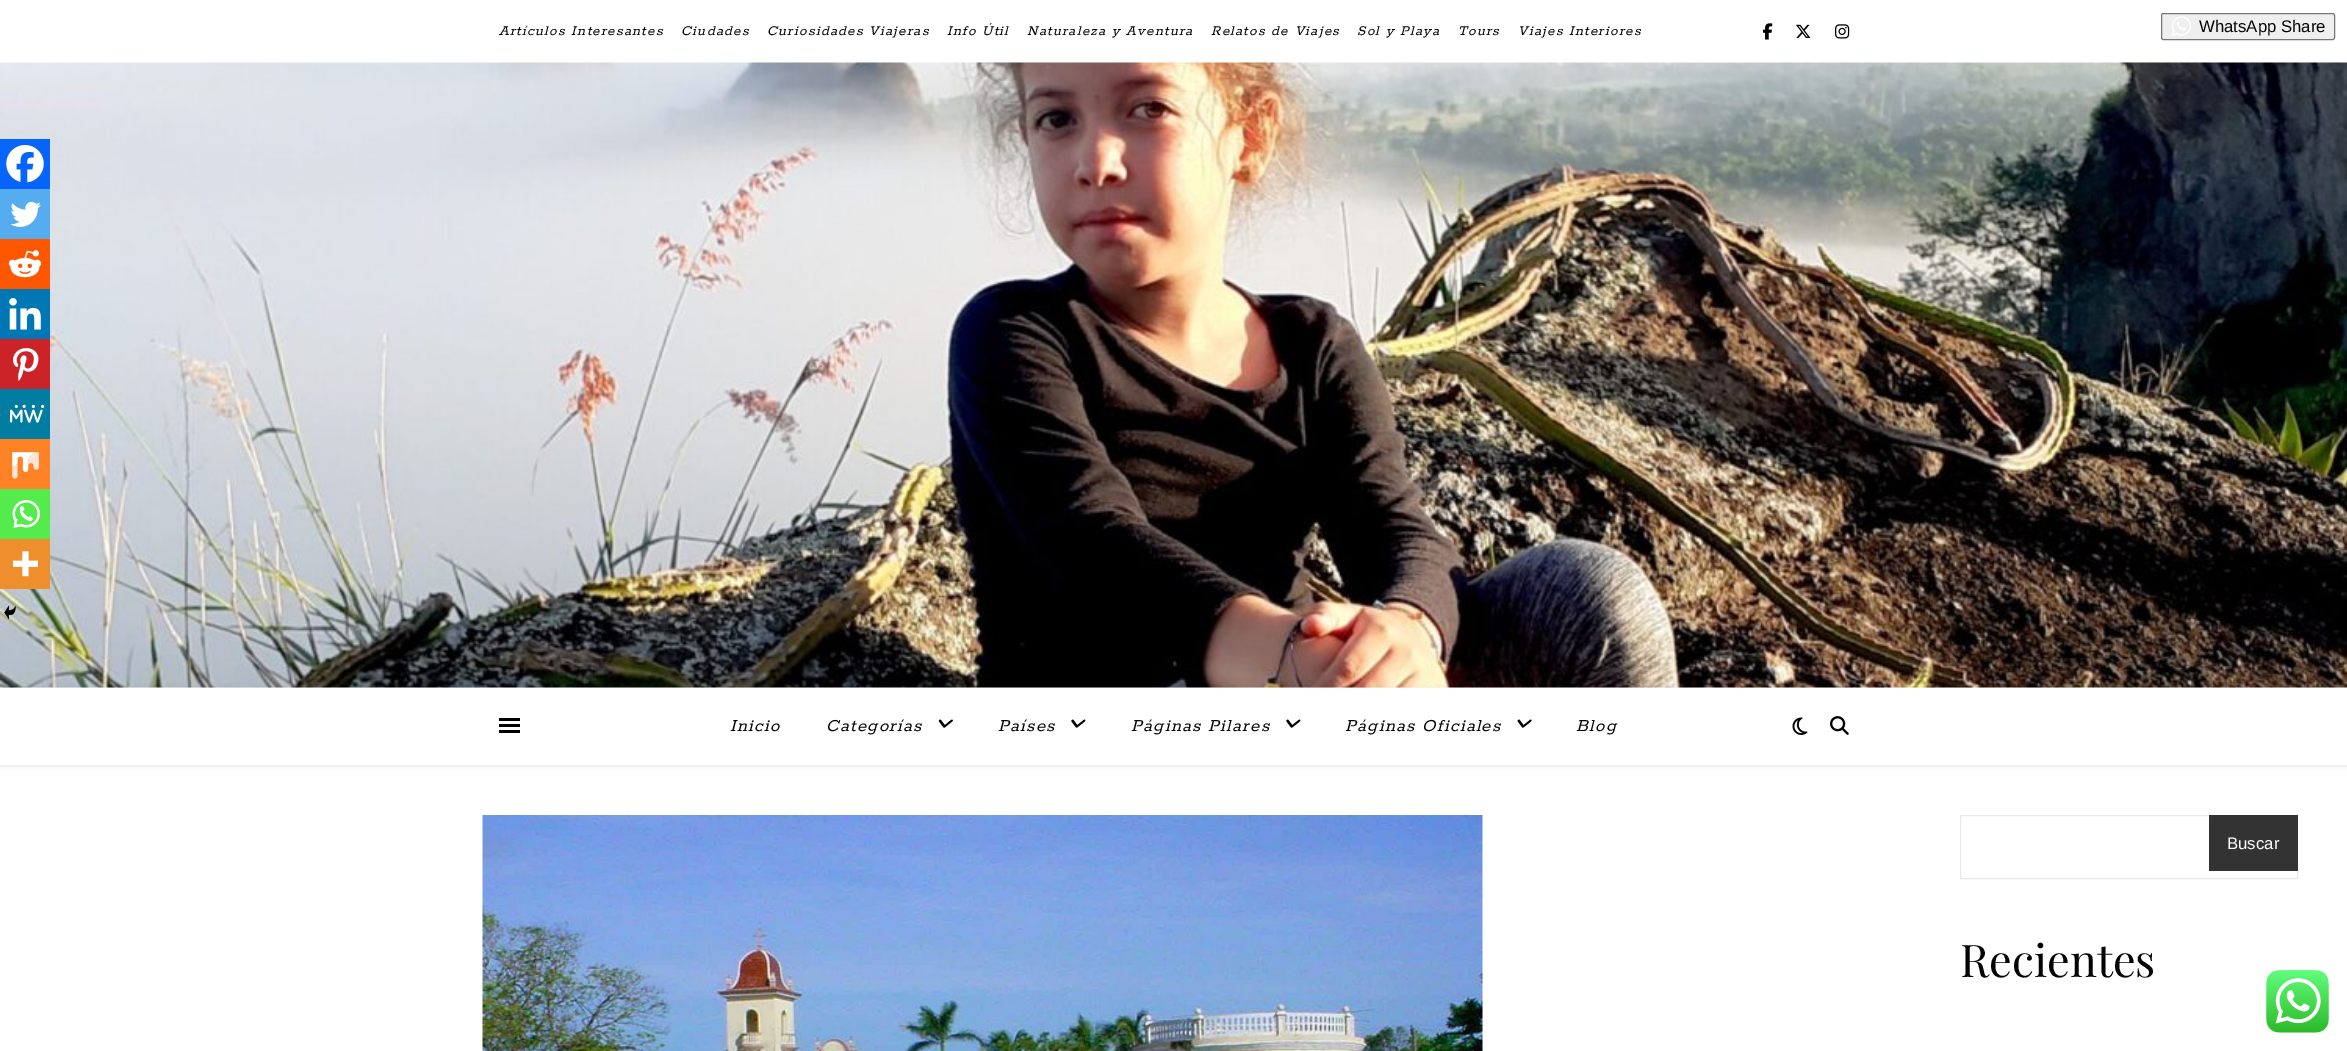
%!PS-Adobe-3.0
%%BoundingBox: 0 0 2347 1051
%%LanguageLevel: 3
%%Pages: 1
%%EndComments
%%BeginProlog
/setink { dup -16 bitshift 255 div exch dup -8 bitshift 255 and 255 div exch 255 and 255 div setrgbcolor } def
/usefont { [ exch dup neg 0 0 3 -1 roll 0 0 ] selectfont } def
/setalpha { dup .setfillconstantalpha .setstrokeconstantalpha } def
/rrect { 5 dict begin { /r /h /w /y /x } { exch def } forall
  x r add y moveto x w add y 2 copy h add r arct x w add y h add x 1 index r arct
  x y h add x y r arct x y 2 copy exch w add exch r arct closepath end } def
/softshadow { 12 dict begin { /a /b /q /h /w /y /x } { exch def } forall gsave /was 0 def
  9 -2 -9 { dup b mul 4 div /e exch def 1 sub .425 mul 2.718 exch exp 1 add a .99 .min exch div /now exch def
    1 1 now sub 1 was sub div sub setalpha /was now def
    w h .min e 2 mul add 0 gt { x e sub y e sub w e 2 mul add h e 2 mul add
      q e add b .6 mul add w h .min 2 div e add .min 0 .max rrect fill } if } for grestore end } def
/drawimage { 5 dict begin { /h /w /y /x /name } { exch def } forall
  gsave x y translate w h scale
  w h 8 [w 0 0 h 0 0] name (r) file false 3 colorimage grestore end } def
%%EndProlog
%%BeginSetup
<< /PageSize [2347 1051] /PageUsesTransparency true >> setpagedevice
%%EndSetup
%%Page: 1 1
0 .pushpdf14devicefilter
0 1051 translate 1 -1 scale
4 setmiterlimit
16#FFFFFF setink
0 0 2347 1051 rectfill
16#EFEFEF setink
2161.5 13.5 173 26 2 rrect gsave fill grestore
16#767676 setink
stroke
(img1.raw) 2171 16 20 20 drawimage
/LiberationSans-Regular 16.75 usefont
16#030303 setink
2199 32 moveto (WhatsApp Share) show
/Rokkitt-SemiBoldItalic 15 usefont
499 35 moveto 1.25 0 (Artículos Interesantes) ashow
681 35 moveto 1.25 0 (Ciudades) ashow
767 35 moveto 1.25 0 (Curiosidades Viajeras) ashow
947 35 moveto 1.25 0 (Info Útil) ashow
1027 35 moveto 1.25 0 (Naturaleza y Aventura) ashow
1211 35 moveto 1.25 0 (Relatos de Viajes) ashow
1357 35 moveto 1.25 0 (Sol y Playa) ashow
1458 35 moveto 1.25 0 (Tours) ashow
1518 35 moveto 1.25 0 (Viajes Interiores) ashow
(img2.raw) 1762 23 11 17 drawimage
(img3.raw) 1796 24 15 14 drawimage
(img4.raw) 1835 24 15 15 drawimage
(img5.raw) 0 62 2347 626 drawimage
gsave
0 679 moveto 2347 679 lineto 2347 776 lineto 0 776 lineto closepath 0 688 moveto 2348 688 lineto 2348 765 lineto 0 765 lineto closepath eoclip newpath
16#000000 setink
0 689 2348 77 0 3 0.1 softshadow
grestore
[
    [499 718 21 3 16#000000]
    [499 724 21 3 16#000000]
    [499 730 21 3 16#000000]
] { aload pop setink rectfill } forall
/Rokkitt-SemiBoldItalic 18.75 usefont
16#030303 setink
730 731 moveto 1.25 0 (Inicio) ashow
826 731 moveto 1.25 0 (Categorías) ashow
(img6.raw) 938 719 15 9 drawimage
998 731 moveto 1.25 0 (Países) ashow
(img7.raw) 1071 719 15 9 drawimage
1131 731 moveto 1.25 0 (Páginas Pilares) ashow
(img7.raw) 1286 719 15 9 drawimage
1345 731 moveto 1.25 0 (Páginas Oficiales) ashow
(img8.raw) 1517 719 15 9 drawimage
1576 731 moveto 1.25 0 (Blog) ashow
(img9.raw) 1792 717 16 18 drawimage
(img10.raw) 1830 716 19 19 drawimage
16#0765FE setink
0 139 50 50 rectfill
(img11.raw) 6 145 38 38 drawimage
16#55ACEE setink
0 189 50 50 rectfill
(img12.raw) 10 201 31 26 drawimage
16#FF5700 setink
0 239 50 50 rectfill
(img13.raw) 8 250 34 28 drawimage
16#0077B5 setink
0 289 50 50 rectfill
(img14.raw) 9 298 32 32 drawimage
16#CC2329 setink
0 339 50 50 rectfill
(img15.raw) 13 348 26 33 drawimage
16#007DA1 setink
0 389 50 50 rectfill
(img16.raw) 10 404 35 19 drawimage
16#FF8226 setink
0 439 50 50 rectfill
(img17.raw) 12 452 27 27 drawimage
16#55EB4C setink
0 489 50 50 rectfill
(img18.raw) 12 500 28 28 drawimage
16#EE8E2D setink
0 539 50 50 rectfill
(img19.raw) 12 551 26 26 drawimage
(img20.raw) 4 605 12 15 drawimage
(img21.raw) 482 815 1001 236 drawimage
16#E8E8E8 setink
1960.5 815.5 337 63 rectstroke
16#333333 setink
2209 815 89 56 rectfill
/LiberationSans-Regular 16.75 usefont
16#FFFFFF setink
2227 849 moveto (Buscar) show
/PlayfairDisplay-Regular 45 usefont
16#030303 setink
1960 977 moveto (Recientes) show
(img22.raw) 2266 970 63 63 drawimage
.poppdf14devicefilter showpage
%%EOF
